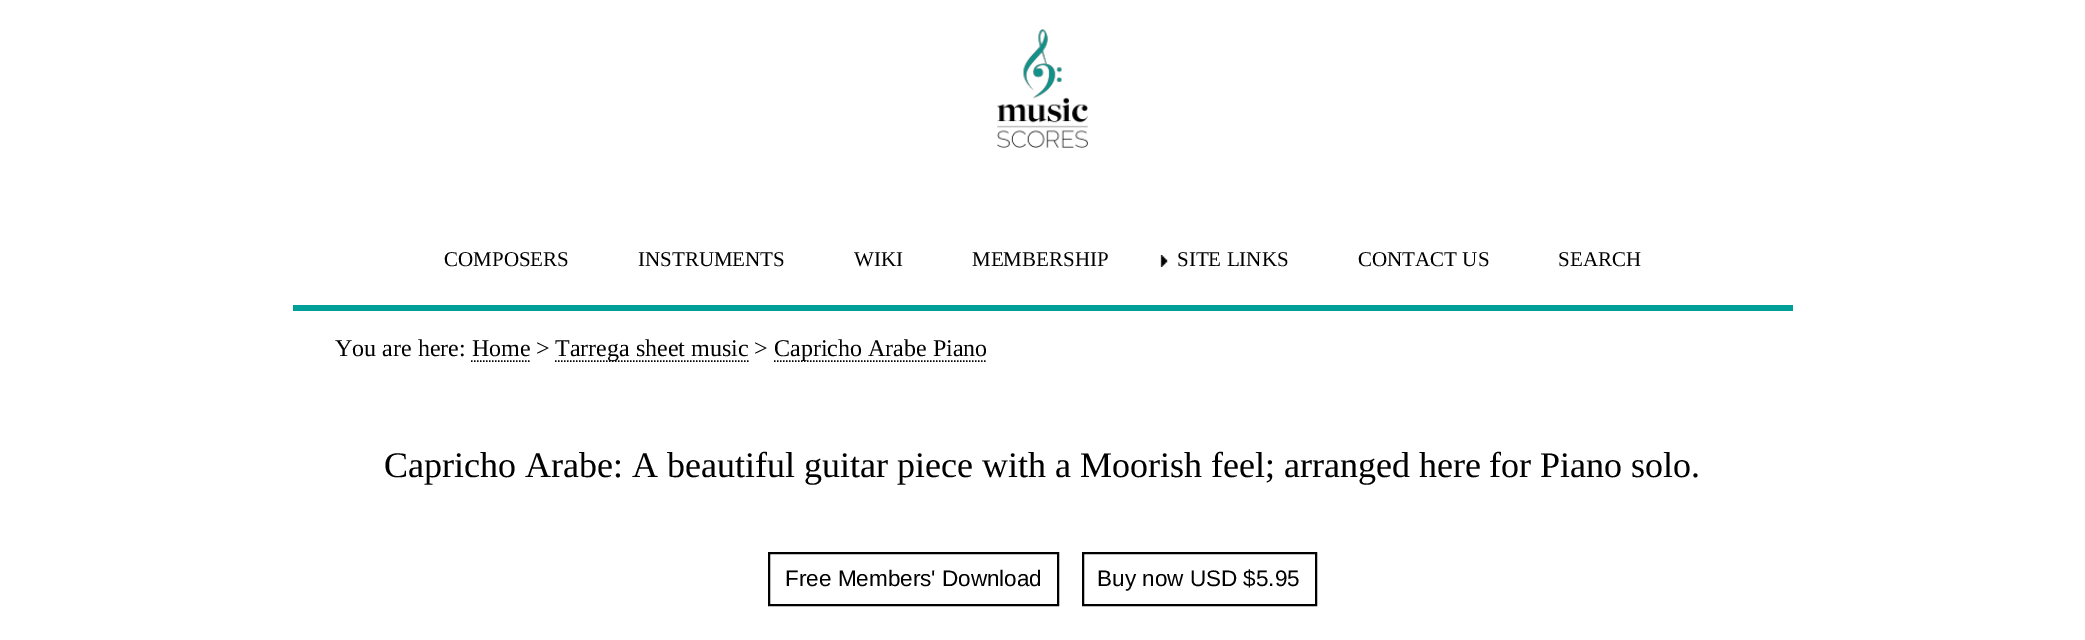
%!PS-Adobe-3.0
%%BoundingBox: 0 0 2085 640
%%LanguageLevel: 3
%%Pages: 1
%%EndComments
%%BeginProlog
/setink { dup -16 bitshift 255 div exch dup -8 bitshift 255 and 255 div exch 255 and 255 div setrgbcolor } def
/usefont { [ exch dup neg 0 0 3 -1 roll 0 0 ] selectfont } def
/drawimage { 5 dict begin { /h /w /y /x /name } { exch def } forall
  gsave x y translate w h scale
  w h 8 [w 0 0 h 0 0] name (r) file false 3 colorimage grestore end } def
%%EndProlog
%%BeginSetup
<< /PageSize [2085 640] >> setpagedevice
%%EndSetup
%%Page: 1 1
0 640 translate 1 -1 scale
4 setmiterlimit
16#FFFFFF setink
0 0 2085 640 rectfill
(img1.raw) 997 29 91 119 drawimage
/LiberationSerif-Regular 21 usefont
16#000000 setink
[
    [(COMPOSERS) 444 266]
    [(INSTRUMENTS) 638 266]
    [(WIKI) 854 266]
    [(MEMBERSHIP) 972 266]
] { aload pop moveto show } forall
(img2.raw) 1160 255 8 12 drawimage
[
    [(SITE LINKS) 1177 266]
    [(CONTACT US) 1358 266]
    [(SEARCH) 1558 266]
] { aload pop moveto show } forall
16#00A099 setink
293 305 1500 6 rectfill
/LiberationSerif-Regular 24 usefont
16#000000 setink
335 356 moveto (You are here: Home >) show
1.5 setlinewidth
[1.5 1.5] 0 setdash
555 361 moveto 748.5 361 lineto stroke
555 356 moveto (Tarrega sheet music >) show
774 361 moveto 987 361 lineto stroke
774 356 moveto (Capricho Arabe Piano) show
471 361 moveto 529.5 361 lineto stroke
/LiberationSerif-Regular 36 usefont
384 477 moveto (Capricho Arabe: A beautiful guitar piece with a Moorish feel; arranged here for Piano solo.) show
2 setlinewidth
[] 0 setdash
769 553 289 52 rectstroke
/LiberationSans-Regular 22.5 usefont
785 586 moveto (Free Members' Download) show
1083 553 233 52 rectstroke
1097 586 moveto (Buy now USD $5.95) show
showpage
%%EOF
